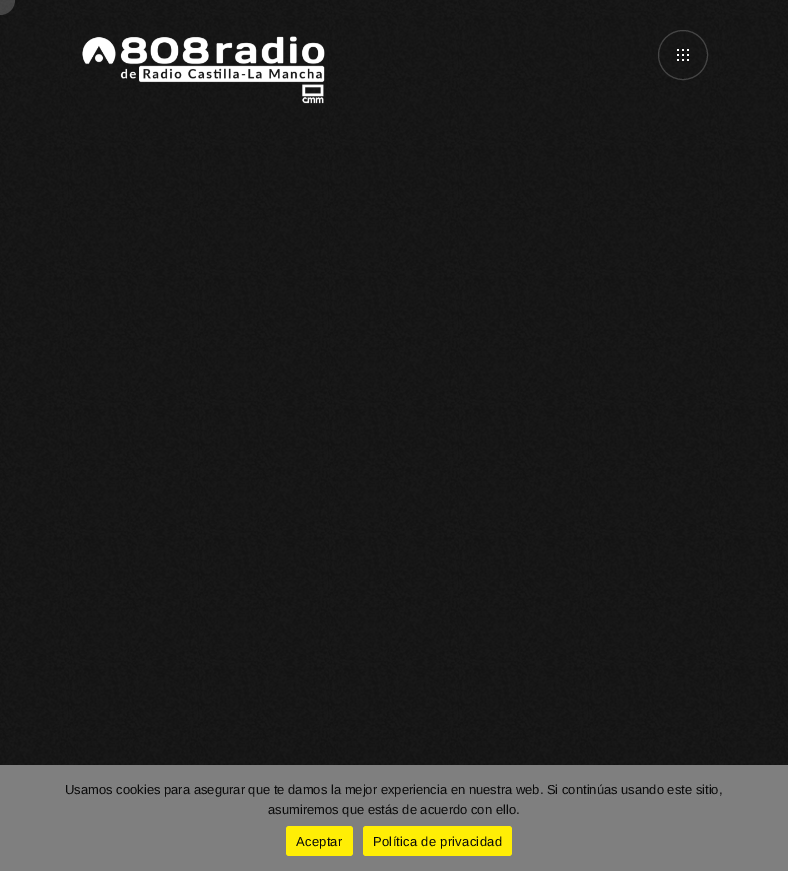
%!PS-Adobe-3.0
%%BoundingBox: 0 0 788 871
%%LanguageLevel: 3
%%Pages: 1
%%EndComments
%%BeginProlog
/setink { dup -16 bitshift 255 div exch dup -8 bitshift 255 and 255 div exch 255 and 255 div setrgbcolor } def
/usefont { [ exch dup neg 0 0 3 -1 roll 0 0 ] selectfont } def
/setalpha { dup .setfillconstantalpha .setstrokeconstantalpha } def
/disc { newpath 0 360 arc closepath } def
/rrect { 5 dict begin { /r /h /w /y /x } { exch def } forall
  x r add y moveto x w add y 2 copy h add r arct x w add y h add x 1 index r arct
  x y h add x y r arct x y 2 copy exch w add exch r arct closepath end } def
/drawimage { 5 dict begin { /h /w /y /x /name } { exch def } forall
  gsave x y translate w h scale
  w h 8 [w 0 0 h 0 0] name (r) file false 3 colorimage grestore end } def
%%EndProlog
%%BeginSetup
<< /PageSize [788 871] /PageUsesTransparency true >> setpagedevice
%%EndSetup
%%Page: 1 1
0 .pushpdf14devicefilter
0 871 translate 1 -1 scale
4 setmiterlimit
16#121212 setink
0 0 788 871 rectfill
(img1.raw) 0 0 788 765 drawimage
0.2 setalpha
16#FFFFFF setink
0 0 15 disc fill
1 setalpha
(img2.raw) 82 36 243 68 drawimage
0.2 setalpha
683 55 24.5 disc stroke
1 setalpha
[
    [677 49 2 2 16#FFFFFF]
    [682 49 2 2 16#FFFFFF]
    [687 49 2 2 16#FFFFFF]
    [677 54 2 2 16#FFFFFF]
    [682 54 2 2 16#FFFFFF]
    [687 54 2 2 16#FFFFFF]
    [677 59 2 2 16#FFFFFF]
    [682 59 2 2 16#FFFFFF]
    [687 59 2 2 16#FFFFFF]
    [0 765 788 106 16#7F7F7F]
] { aload pop setink rectfill } forall
/LiberationSans-Regular 13 usefont
16#0A0A0A setink
65 794 moveto (Usamos cookies para asegurar que te damos la mejor experiencia en nuestra web. Si continúas usando este sitio,) show
268 814 moveto (asumiremos que estás de acuerdo con ello.) show
16#FFEE05 setink
286 826 67 30 3 rrect fill
16#0A0A0A setink
296 846 moveto 0.25 0 (Aceptar) ashow
16#FFEE05 setink
363 826 149 30 3 rrect fill
16#0A0A0A setink
373 846 moveto 0.25 0 (Política de privacidad) ashow
.poppdf14devicefilter showpage
%%EOF
